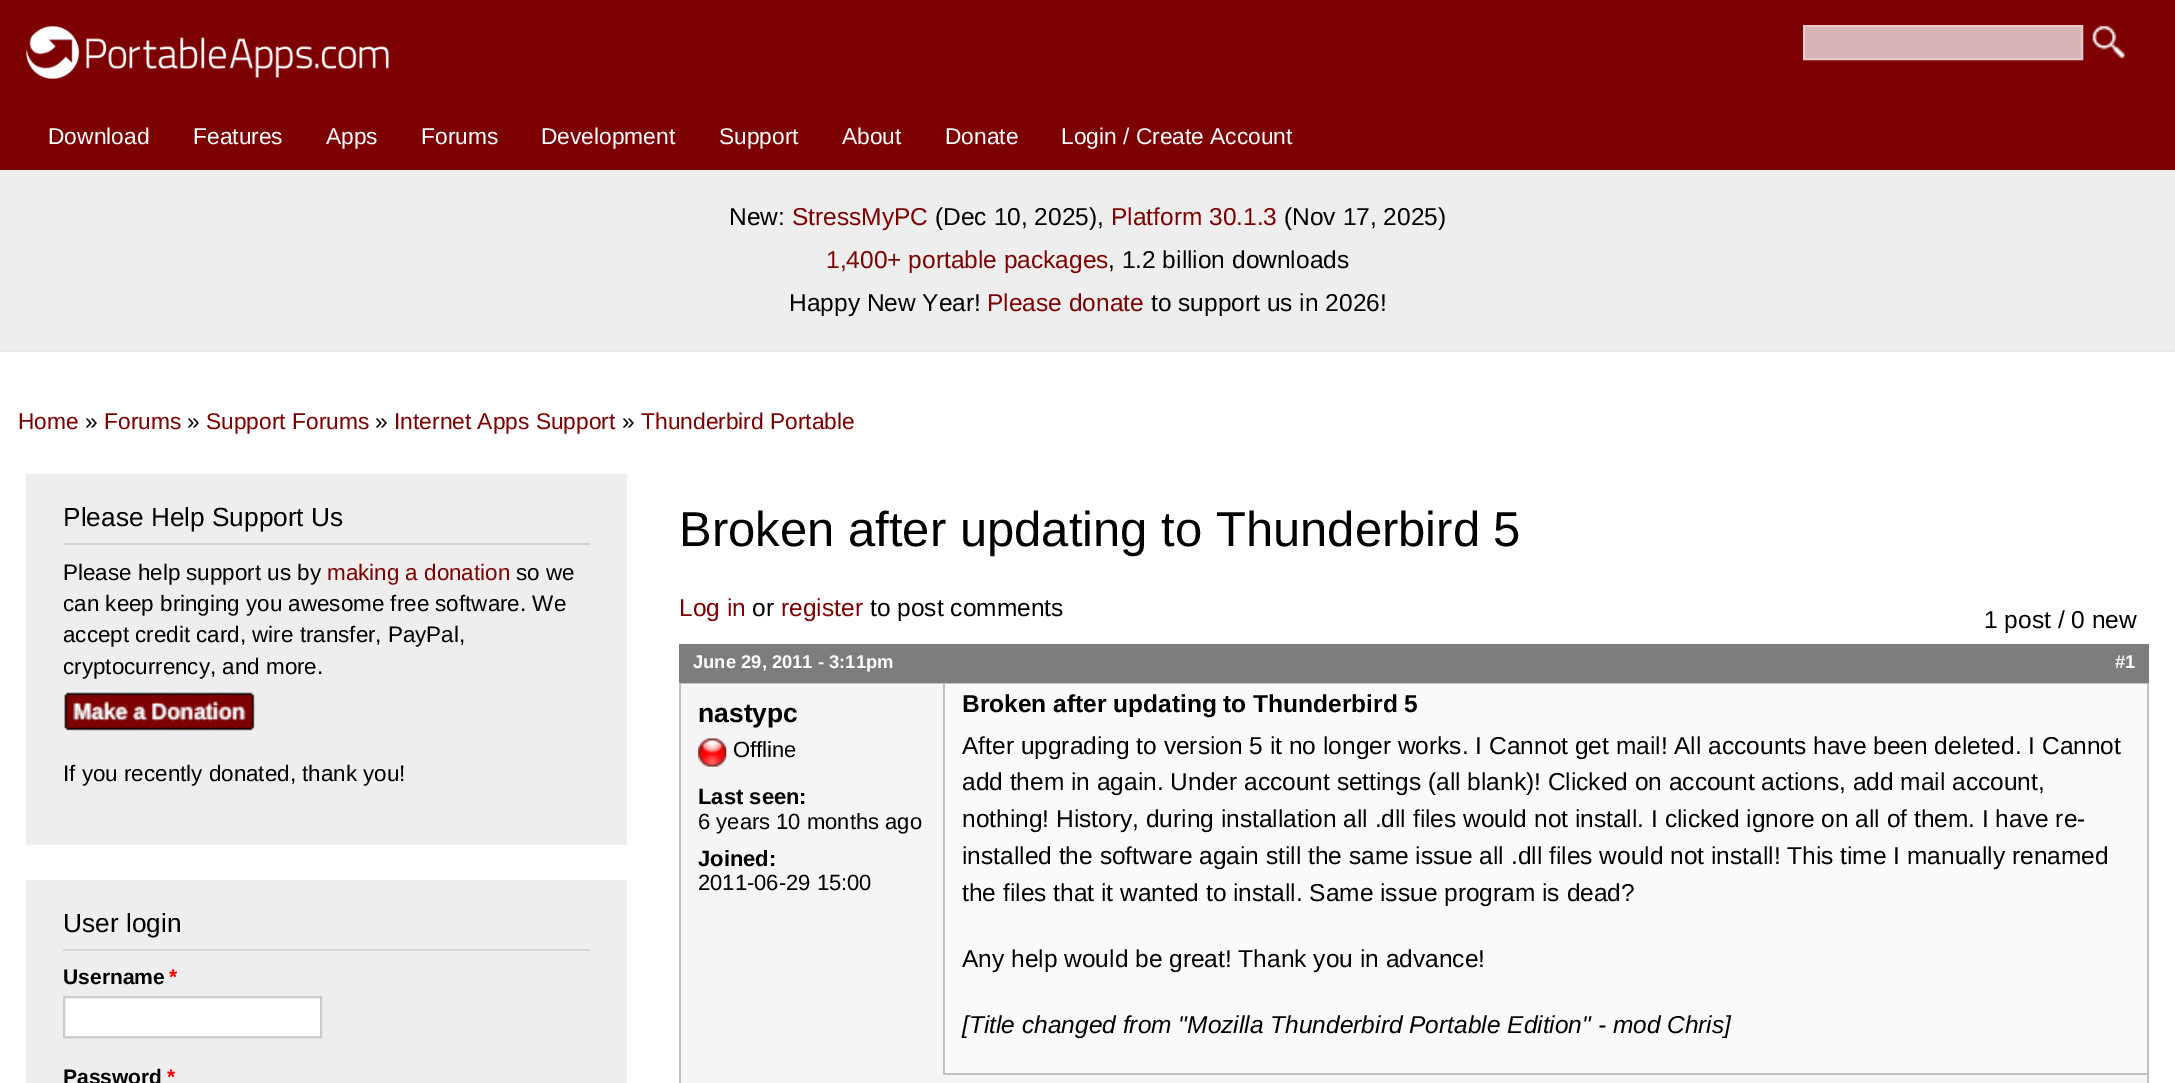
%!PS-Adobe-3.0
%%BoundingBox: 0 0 2175 1083
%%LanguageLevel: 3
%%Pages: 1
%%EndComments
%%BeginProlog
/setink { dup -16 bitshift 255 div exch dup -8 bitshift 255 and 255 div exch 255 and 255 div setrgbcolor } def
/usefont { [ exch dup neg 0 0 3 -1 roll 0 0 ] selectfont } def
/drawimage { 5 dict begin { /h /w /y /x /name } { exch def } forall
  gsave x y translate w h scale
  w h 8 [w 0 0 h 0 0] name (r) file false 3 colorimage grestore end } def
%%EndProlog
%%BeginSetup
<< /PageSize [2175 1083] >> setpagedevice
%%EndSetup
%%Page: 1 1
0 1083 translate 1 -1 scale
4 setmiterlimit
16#FFFFFF setink
0 0 2175 1083 rectfill
16#7D0003 setink
0 0 2175 170 rectfill
(img1.raw) 26 26 363 53 drawimage
16#D8B3B3 setink
1804 26 moveto 2082 26 lineto 2082 59 lineto 1804 59 lineto closepath gsave fill grestore
16#E4CACA setink
2 setlinewidth
stroke
(img2.raw) 2092 25 33 34 drawimage
/Arimo-Regular 22.75 usefont
16#FFFFFF setink
[
    [(Download) 48 144]
    [(Features) 193 144]
    [(Apps) 326 144]
    [(Forums) 421 144]
    [(Development) 541 144]
    [(Support) 719 144]
    [(About) 842 144]
    [(Donate) 945 144]
    [(Login / Create Account) 1061 144]
] { aload pop moveto show } forall
16#EEEEEE setink
0 170 2175 180 rectfill
16#E7E7E7 setink
0 350 2175 2 rectfill
/Arimo-Regular 24.5 usefont
16#000000 setink
729 225 moveto (New:) show
16#7D0000 setink
792 225 moveto (StressMyPC) show
16#000000 setink
935 225 moveto (\(Dec 10, 2025\),) show
16#7D0000 setink
1111 225 moveto (Platform 30.1.3) show
16#000000 setink
1284 225 moveto (\(Nov 17, 2025\)) show
16#7D0000 setink
826 268 moveto (1,400+ portable packages) show
16#000000 setink
1108 268 moveto (, 1.2 billion downloads) show
789 311 moveto (Happy New Year!) show
16#7D0000 setink
987 311 moveto (Please donate) show
16#000000 setink
1151 311 moveto (to support us in 2026!) show
/Arimo-Regular 22.75 usefont
16#7D0000 setink
18 429 moveto (Home) show
16#000000 setink
85 429 moveto (») show
16#7D0000 setink
104 429 moveto (Forums) show
16#000000 setink
187 429 moveto (») show
16#7D0000 setink
206 429 moveto (Support Forums) show
16#000000 setink
375 429 moveto (») show
16#7D0000 setink
394 429 moveto (Internet Apps Support) show
16#000000 setink
622 429 moveto (») show
16#7D0000 setink
641 429 moveto (Thunderbird Portable) show
16#EEEEEE setink
26 474 601 371 rectfill
16#D6D6D6 setink
63 543 527 2 rectfill
/Arimo-Regular 26.25 usefont
16#000000 setink
63 526 moveto (Please Help Support Us) show
/Arimo-Regular 22.4 usefont
63 580 moveto (Please help support us by) show
16#7D0000 setink
327 580 moveto (making a donation) show
16#000000 setink
[
    [(so we) 516 580]
    [(can keep bringing you awesome free software. We) 63 611]
    [(accept credit card, wire transfer, PayPal,) 63 642]
    [(cryptocurrency, and more.) 63 674]
] { aload pop moveto show } forall
(img3.raw) 64 692 192 39 drawimage
63 781 moveto (If you recently donated, thank you!) show
16#EEEEEE setink
26 880 601 203 rectfill
16#D6D6D6 setink
63 949 527 2 rectfill
/Arimo-Regular 26.25 usefont
16#000000 setink
63 932 moveto (User login) show
/Arimo-Bold 21 usefont
63 984 moveto (Username) show
16#FF0000 setink
169 984 moveto (*) show
16#FFFFFF setink
64 997 moveto 321 997 lineto 321 1037 lineto 64 1037 lineto closepath gsave fill grestore
16#CCCCCC setink
stroke
16#000000 setink
63 1084 moveto (Password) show
16#FF0000 setink
167 1084 moveto (*) show
/Arimo-Regular 49 usefont
16#000000 setink
679 546 moveto (Broken after updating to Thunderbird 5) show
/Arimo-Regular 24.5 usefont
16#7D0000 setink
679 616 moveto (Log in) show
16#000000 setink
752 616 moveto (or) show
16#7D0000 setink
781 616 moveto (register) show
16#000000 setink
870 616 moveto (to post comments) show
1984 628 moveto (1 post / 0 new) show
[
    [679 644 1470 39 16#7D7D7D]
    [679 642 1470 2 16#FAFAFA]
    [679 683 1470 1 16#C1C1C1]
] { aload pop setink rectfill } forall
/Arimo-Bold 18.4 usefont
16#FFFFFF setink
693 668 moveto (June 29, 2011 - 3:11pm) show
2115 668 moveto (#1) show
[
    [681 684 262 391 16#F5F5F5]
    [2147 684 2 391 16#C1C1C1]
    [679 684 2 391 16#C1C1C1]
] { aload pop setink rectfill } forall
/Arimo-Bold 26.5 usefont
16#000000 setink
698 722 moveto (nastypc) show
(img4.raw) 698 738 29 29 drawimage
/Arimo-Regular 22 usefont
733 757 moveto (Offline) show
/Arimo-Bold 22 usefont
698 804 moveto (Last seen:) show
/Arimo-Regular 22 usefont
698 829 moveto (6 years 10 months ago) show
/Arimo-Bold 22 usefont
698 866 moveto (Joined:) show
/Arimo-Regular 22 usefont
698 890 moveto (2011-06-29 15:00) show
[
    [945 684 1202 389 16#FAFAFA]
    [943 1073 1204 2 16#C1C1C1]
    [943 684 2 391 16#C1C1C1]
] { aload pop setink rectfill } forall
/Arimo-Bold 24.5 usefont
16#000000 setink
962 712 moveto (Broken after updating to Thunderbird 5) show
/Arimo-Regular 24.5 usefont
[
    [(After upgrading to version 5 it no longer works. I Cannot get mail! All accounts have been deleted. I Cannot) 962 754]
    [(add them in again. Under account settings \(all blank\)! Clicked on account actions, add mail account,) 962 790]
    [(nothing! History, during installation all .dll files would not install. I clicked ignore on all of them. I have re-) 962 827]
    [(installed the software again still the same issue all .dll files would not install! This time I manually renamed) 962 864]
    [(the files that it wanted to install. Same issue program is dead?) 962 901]
    [(Any help would be great! Thank you in advance!) 962 967]
] { aload pop moveto show } forall
/Arimo-Italic 24.5 usefont
962 1033 moveto ([Title changed from "Mozilla Thunderbird Portable Edition" - mod Chris]) show
[
    [679 1075 1470 8 16#F5F5F5]
    [2147 1075 2 8 16#C1C1C1]
    [679 1075 2 8 16#C1C1C1]
] { aload pop setink rectfill } forall
showpage
%%EOF
